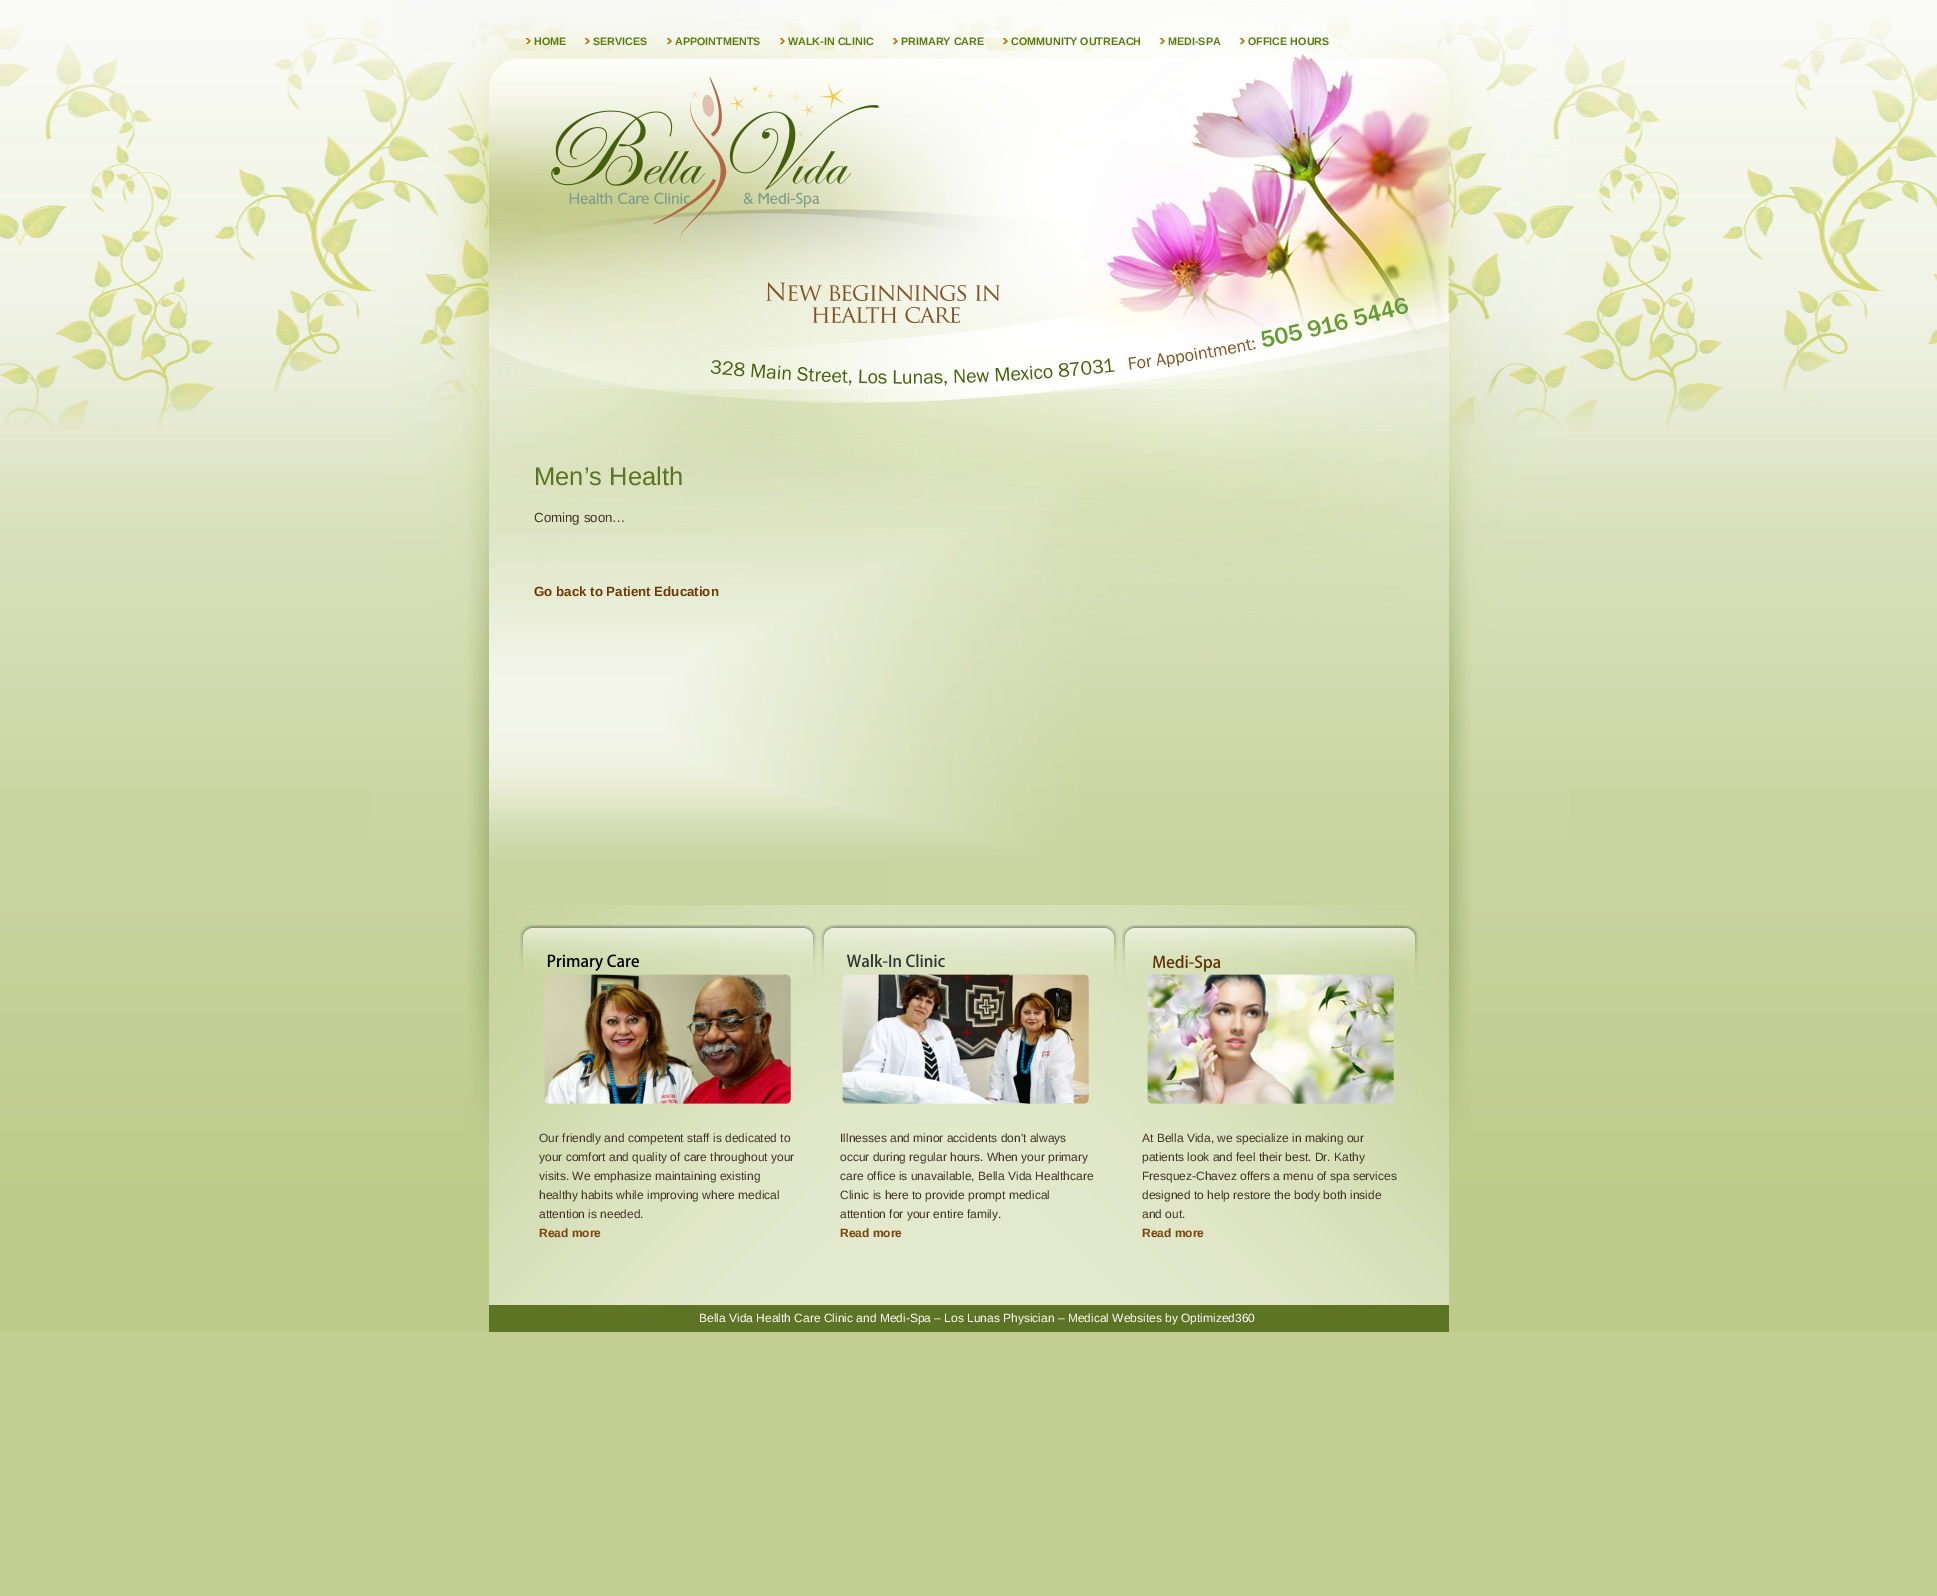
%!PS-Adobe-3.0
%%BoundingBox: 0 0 1937 1596
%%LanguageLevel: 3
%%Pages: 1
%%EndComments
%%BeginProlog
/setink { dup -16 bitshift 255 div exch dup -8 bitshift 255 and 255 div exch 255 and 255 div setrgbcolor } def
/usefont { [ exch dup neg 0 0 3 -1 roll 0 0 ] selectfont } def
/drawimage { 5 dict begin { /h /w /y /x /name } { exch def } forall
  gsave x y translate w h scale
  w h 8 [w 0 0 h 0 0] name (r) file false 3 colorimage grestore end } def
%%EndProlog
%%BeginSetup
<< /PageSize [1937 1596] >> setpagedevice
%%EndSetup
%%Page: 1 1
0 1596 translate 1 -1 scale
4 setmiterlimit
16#C2CE92 setink
0 0 1937 1596 rectfill
(img1.raw) 0 0 1937 450 drawimage
(img2.raw) 392 0 1177 450 drawimage
(img3.raw) 0 16 1937 414 drawimage
(img4.raw) 1073 20 376 318 drawimage
(img5.raw) 525 38 7 7 drawimage
/LiberationSans-Bold 10.75 usefont
16#597B10 setink
534 45 moveto (HOME) show
(img6.raw) 584 38 7 7 drawimage
593 45 moveto (SERVICES) show
(img7.raw) 666 38 7 7 drawimage
675 45 moveto (APPOINTMENTS) show
(img8.raw) 779 38 7 7 drawimage
788 45 moveto (WALK-IN CLINIC) show
(img9.raw) 892 38 7 7 drawimage
901 45 moveto (PRIMARY CARE) show
(img10.raw) 1002 38 6 7 drawimage
1011 45 moveto (COMMUNITY OUTREACH) show
(img11.raw) 1159 38 6 7 drawimage
1168 45 moveto (MEDI-SPA) show
(img12.raw) 1239 38 6 7 drawimage
1248 45 moveto (OFFICE HOURS) show
(img13.raw) 551 76 328 165 drawimage
(img14.raw) 710 282 698 104 drawimage
16#C9D4A0 setink
0 788 1937 112 rectfill
(img15.raw) 0 450 1937 338 drawimage
(img16.raw) 369 860 1200 40 drawimage
(img17.raw) 369 450 1200 410 drawimage
/LiberationSans-Regular 25.5 usefont
16#5D7424 setink
534 485 moveto (Men’s Health) show
/LiberationSans-Regular 13.3 usefont
16#403326 setink
534 522 moveto (Coming soon…) show
/LiberationSans-Bold 13.3 usefont
16#6D3800 setink
534 596 moveto (Go back to Patient Education) show
(img18.raw) 0 900 1937 432 drawimage
(img19.raw) 467 900 1004 432 drawimage
(img20.raw) 519 925 298 179 drawimage
/LiberationSans-Regular 12 usefont
16#403326 setink
[
    [(Our friendly and competent staff is dedicated to) 539 1142]
    [(your comfort and quality of care throughout your) 539 1161]
    [(visits. We emphasize maintaining existing) 539 1180]
    [(healthy habits while improving where medical) 539 1199]
    [(attention is needed.) 539 1218]
] { aload pop moveto show } forall
/LiberationSans-Bold 12 usefont
16#78450E setink
539 1237 moveto (Read more) show
(img21.raw) 820 924 298 180 drawimage
/LiberationSans-Regular 12 usefont
16#403326 setink
[
    [(Illnesses and minor accidents don't always) 840 1142]
    [(occur during regular hours. When your primary) 840 1161]
    [(care office is unavailable, Bella Vida Healthcare) 840 1180]
    [(Clinic is here to provide prompt medical) 840 1199]
    [(attention for your entire family.) 840 1218]
] { aload pop moveto show } forall
/LiberationSans-Bold 12 usefont
16#78450E setink
840 1237 moveto (Read more) show
(img22.raw) 1121 925 298 179 drawimage
/LiberationSans-Regular 12 usefont
16#403326 setink
[
    [(At Bella Vida, we specialize in making our) 1142 1142]
    [(patients look and feel their best. Dr. Kathy) 1142 1161]
    [(Fresquez-Chavez offers a menu of spa services) 1142 1180]
    [(designed to help restore the body both inside) 1142 1199]
    [(and out.) 1142 1218]
] { aload pop moveto show } forall
/LiberationSans-Bold 12 usefont
16#78450E setink
1142 1237 moveto (Read more) show
/LiberationSans-Regular 12 usefont
16#FFFFFF setink
699 1322 moveto (Bella Vida Health Care Clinic and Medi-Spa – Los Lunas Physician – Medical Websites by Optimized360) show
showpage
%%EOF
